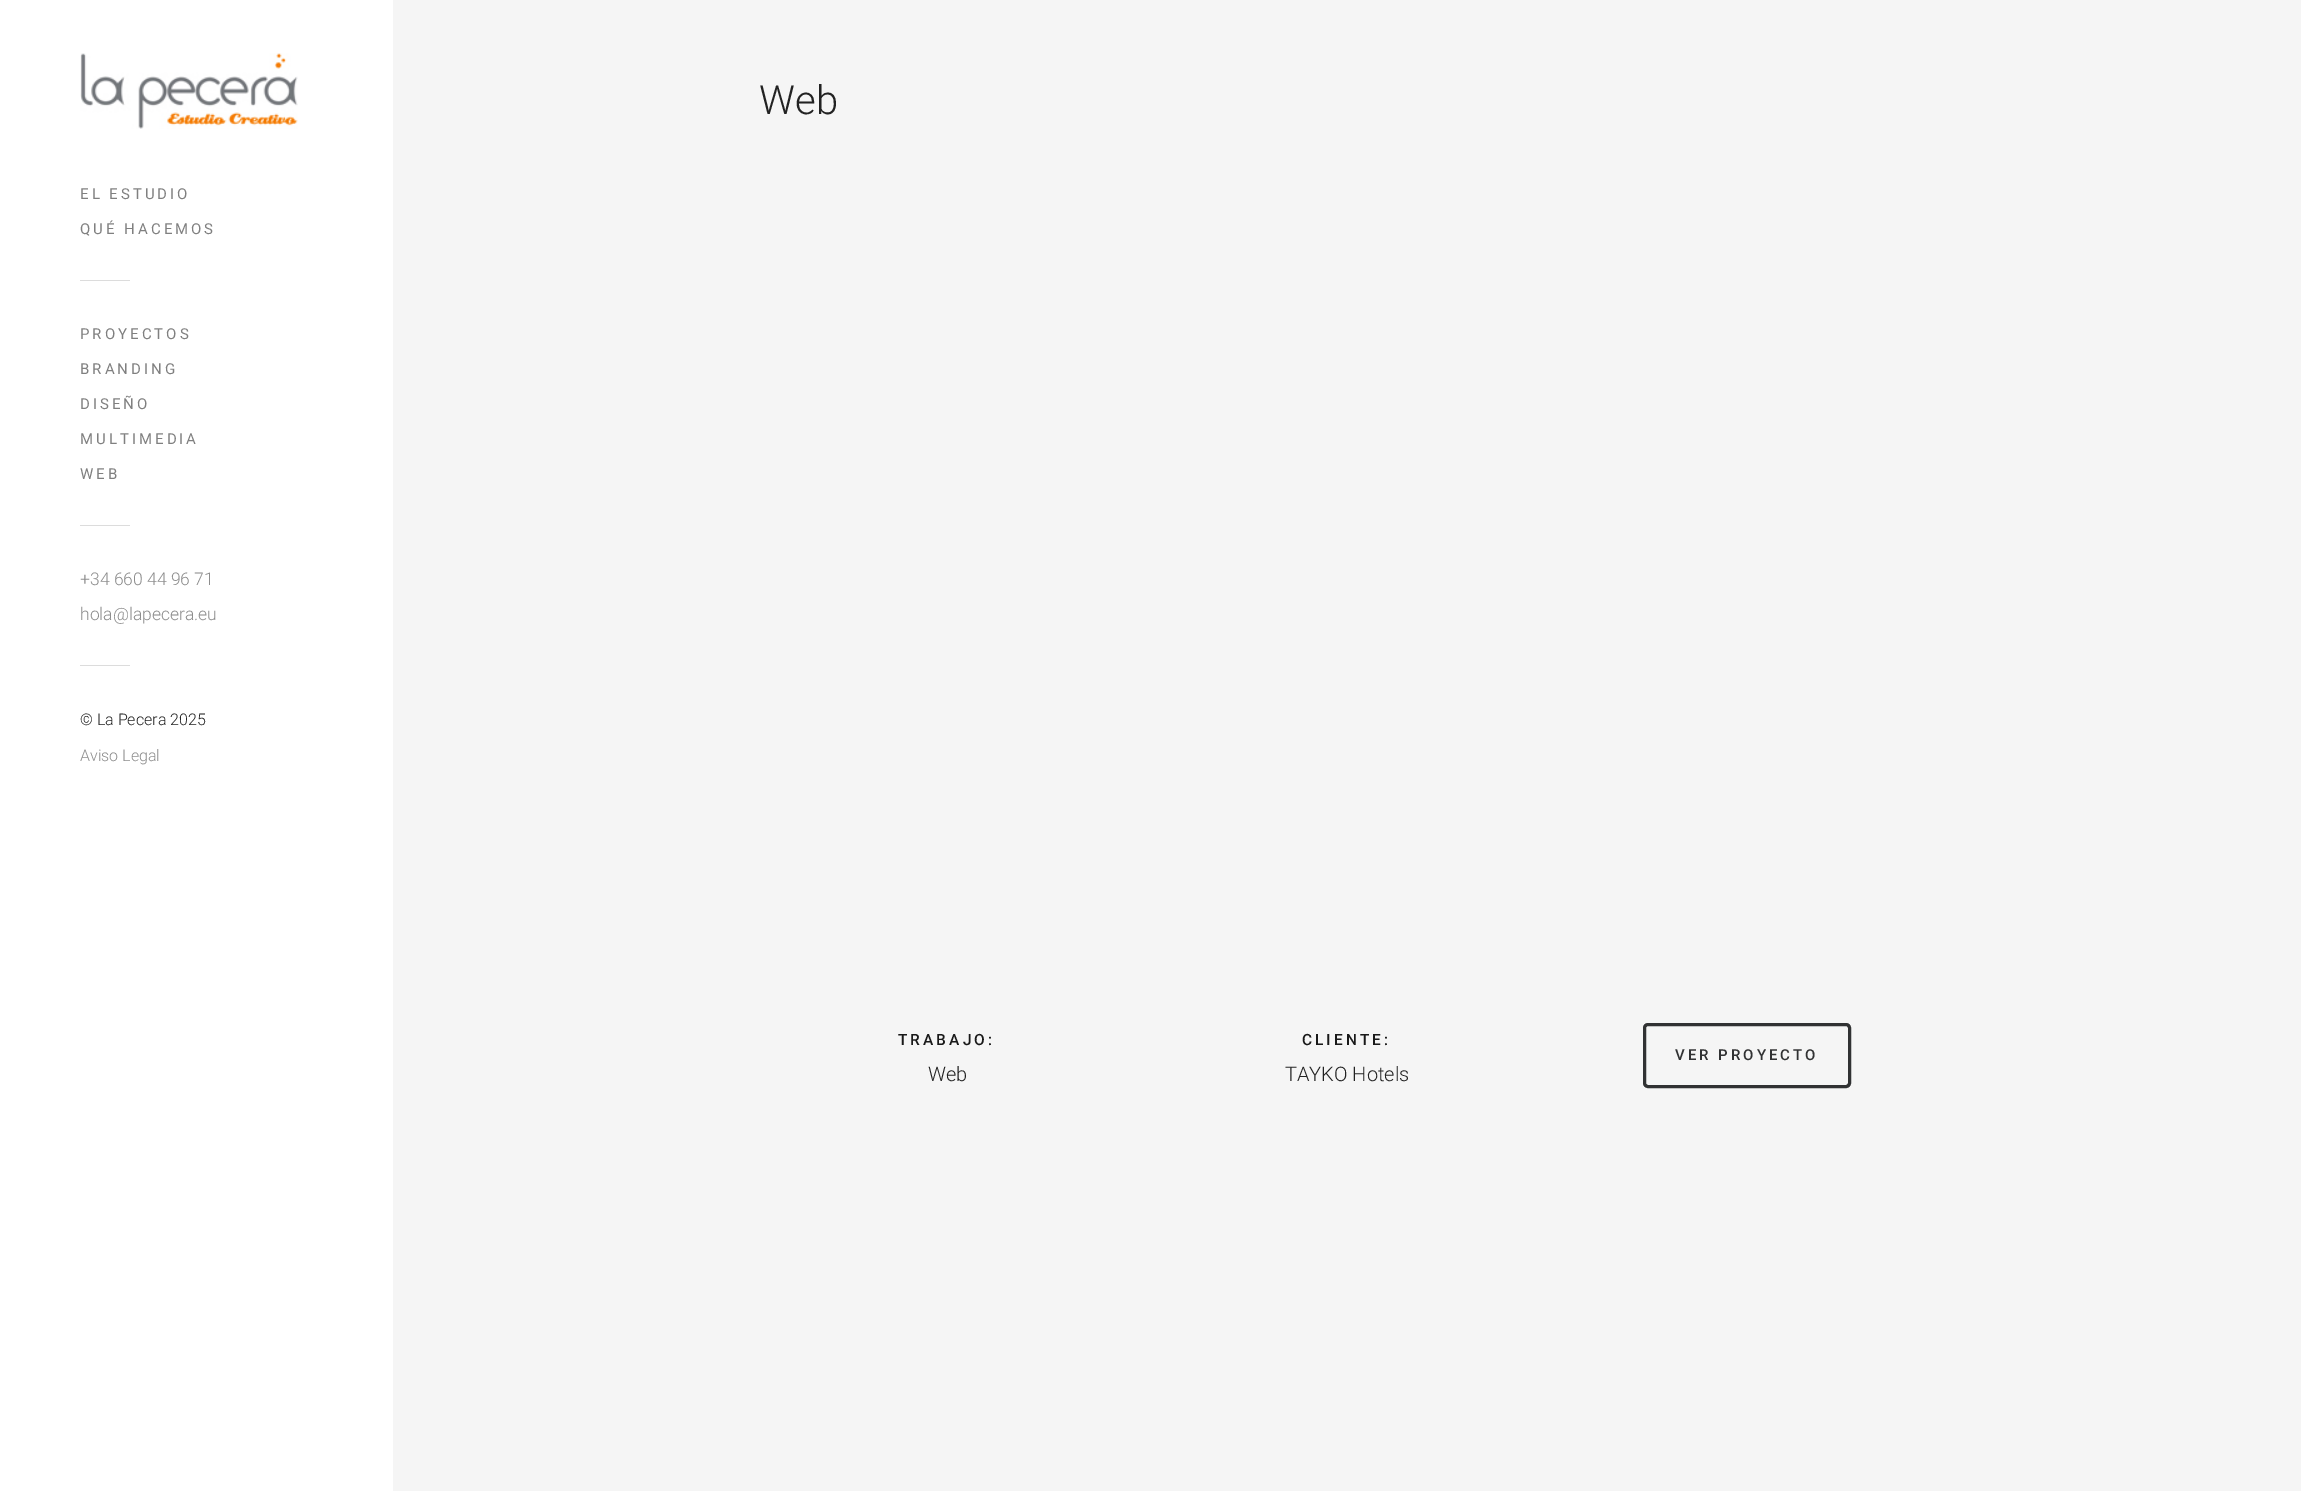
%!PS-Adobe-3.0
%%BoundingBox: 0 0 2301 1491
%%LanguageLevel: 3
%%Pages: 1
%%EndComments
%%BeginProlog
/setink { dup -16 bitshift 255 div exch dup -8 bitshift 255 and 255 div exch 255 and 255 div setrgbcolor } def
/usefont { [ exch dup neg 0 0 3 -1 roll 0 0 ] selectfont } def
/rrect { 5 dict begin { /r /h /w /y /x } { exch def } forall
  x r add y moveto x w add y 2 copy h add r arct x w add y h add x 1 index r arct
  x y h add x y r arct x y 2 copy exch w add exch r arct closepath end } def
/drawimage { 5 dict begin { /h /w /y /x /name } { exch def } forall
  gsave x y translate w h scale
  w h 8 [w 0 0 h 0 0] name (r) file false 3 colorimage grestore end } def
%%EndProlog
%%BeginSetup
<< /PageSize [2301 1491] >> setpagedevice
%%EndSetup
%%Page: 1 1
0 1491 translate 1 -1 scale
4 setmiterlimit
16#FFFFFF setink
0 0 2301 1491 rectfill
16#F5F5F5 setink
393 0 1908 1491 rectfill
(img1.raw) 80 53 218 76 drawimage
/Roboto-Regular 15 usefont
16#808080 setink
80 199 moveto 3 0 (EL ESTUDIO) ashow
80 234 moveto 3 0 (QUÉ HACEMOS) ashow
16#DCDCDC setink
80 280 50 1 rectfill
16#808080 setink
80 339 moveto 3 0 (PROYECTOS) ashow
80 374 moveto 3 0 (BRANDING) ashow
80 409 moveto 3 0 (DISEÑO) ashow
80 444 moveto 3 0 (MULTIMEDIA) ashow
80 479 moveto 3 0 (WEB) ashow
16#DCDCDC setink
80 525 50 1 rectfill
/Roboto-Light 17.5 usefont
16#8D8D8D setink
80 585 moveto (+34 660 44 96 71) show
80 620 moveto (hola@lapecera.eu) show
16#DCDCDC setink
80 665 50 1 rectfill
/Roboto-Light 16 usefont
16#222222 setink
80 725 moveto (© La Pecera 2025) show
16#8D8D8D setink
80 761 moveto (Aviso Legal) show
/Roboto-Light 40 usefont
16#222222 setink
759 114 moveto (Web) show
/Roboto-Medium 15.5 usefont
16#191919 setink
898 1045 moveto 3 0 (TRABAJO:) ashow
/Roboto-Light 20 usefont
16#222222 setink
928 1081 moveto (Web) show
/Roboto-Medium 15.5 usefont
16#191919 setink
1302 1045 moveto 3 0 (CLIENTE:) ashow
/Roboto-Light 20 usefont
16#222222 setink
1285 1081 moveto (TAYKO Hotels) show
16#313233 setink
3 setlinewidth
1644.5 1024.5 205 62 3.5 rrect stroke
/Roboto-Medium 15 usefont
1675 1060 moveto 3 0 (VER PROYECTO) ashow
showpage
%%EOF
